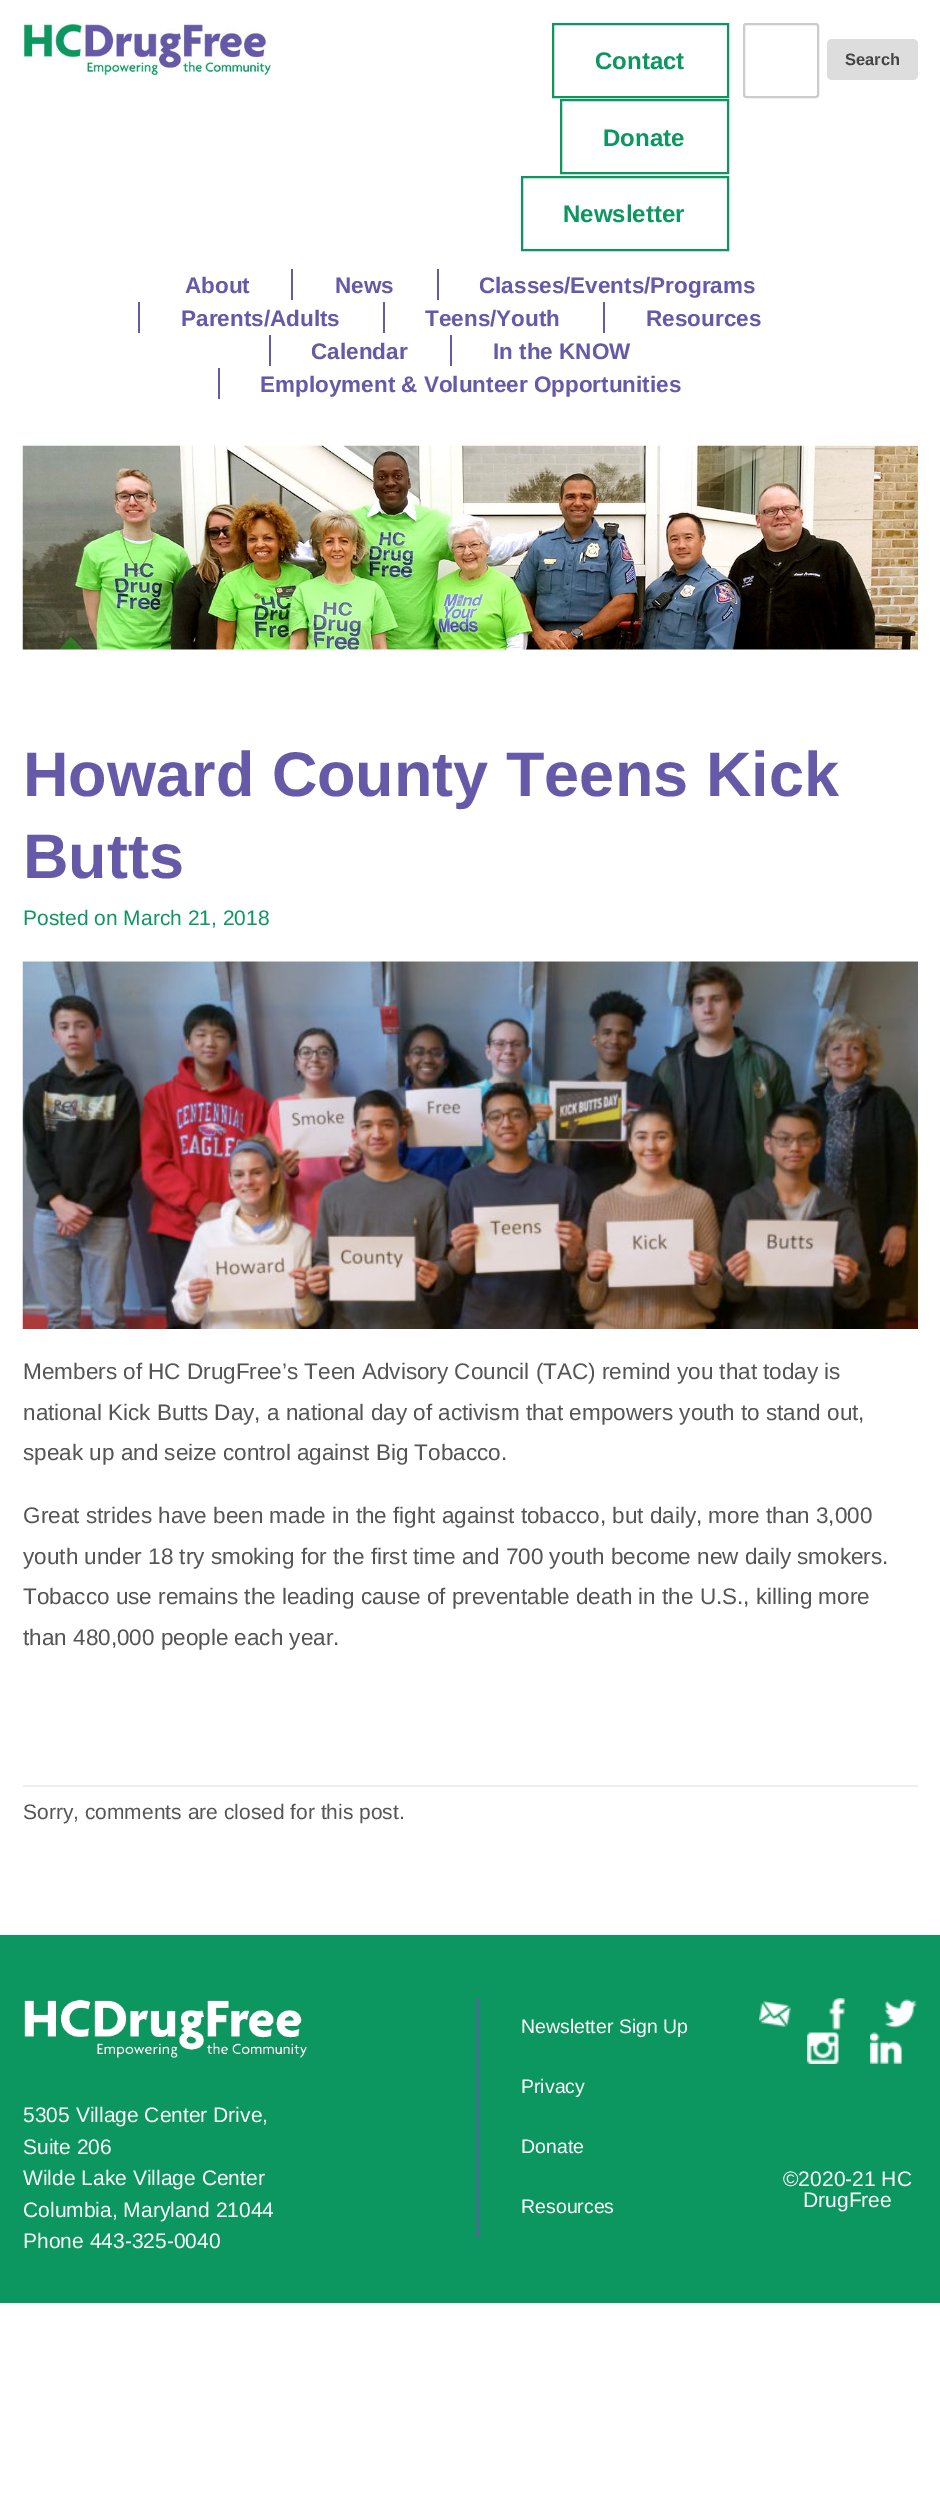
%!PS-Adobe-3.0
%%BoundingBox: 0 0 940 2515
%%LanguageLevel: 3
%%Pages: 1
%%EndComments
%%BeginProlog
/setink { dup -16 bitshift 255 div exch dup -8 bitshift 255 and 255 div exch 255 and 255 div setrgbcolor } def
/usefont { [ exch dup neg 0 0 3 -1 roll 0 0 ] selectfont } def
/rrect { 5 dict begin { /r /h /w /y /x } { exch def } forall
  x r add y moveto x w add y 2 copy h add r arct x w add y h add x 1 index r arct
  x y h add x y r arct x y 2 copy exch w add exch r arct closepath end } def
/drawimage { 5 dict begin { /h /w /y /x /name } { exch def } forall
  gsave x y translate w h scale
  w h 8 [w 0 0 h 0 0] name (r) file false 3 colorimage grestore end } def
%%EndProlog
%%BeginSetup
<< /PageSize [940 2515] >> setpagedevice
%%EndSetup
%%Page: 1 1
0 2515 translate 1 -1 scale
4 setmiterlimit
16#FFFFFF setink
0 0 940 2515 rectfill
(img1.raw) 23 23 248 54 drawimage
16#0D9760 setink
2 setlinewidth
553 24 175 73 rectstroke
/LiberationSans-Bold 24 usefont
595 69 moveto (Contact) show
561 100 167 73 rectstroke
603 146 moveto (Donate) show
522 177 206 73 rectstroke
563 222 moveto (Newsletter) show
16#CCCCCC setink
744 24 74 73 2 rrect stroke
16#DDDDDD setink
827 39 91 41 5 rrect fill
/LiberationSans-Bold 16.5 usefont
16#444444 setink
845 65 moveto (Search) show
/LiberationSans-Bold 22.5 usefont
16#6659A7 setink
185 293 moveto (About) show
291 269 2 31 rectfill
335 293 moveto (News) show
437 269 2 31 rectfill
479 293 moveto (Classes/Events/Programs) show
138 302 2 31 rectfill
181 326 moveto (Parents/Adults) show
383 302 2 31 rectfill
425 326 moveto (Teens/Youth) show
603 302 2 31 rectfill
646 326 moveto (Resources) show
269 335 2 31 rectfill
311 359 moveto (Calendar) show
450 335 2 31 rectfill
493 359 moveto (In the KNOW) show
218 368 2 31 rectfill
260 392 moveto (Employment & Volunteer Opportunities) show
(img2.raw) 22 445 896 205 drawimage
16#EFEFEF setink
23 1785 895 2 rectfill
/LiberationSans-Bold 63 usefont
16#6659A7 setink
23 796 moveto (Howard County Teens Kick) show
23 878 moveto (Butts) show
/LiberationSans-Regular 21 usefont
16#0D9760 setink
23 925 moveto (Posted on March 21, 2018) show
(img3.raw) 22 961 896 368 drawimage
/LiberationSans-Regular 22.5 usefont
16#555555 setink
[
    [(Members of HC DrugFree’s Teen Advisory Council \(TAC\) remind you that today is) 23 1379]
    [(national Kick Butts Day, a national day of activism that empowers youth to stand out,) 23 1420]
    [(speak up and seize control against Big Tobacco.) 23 1460]
    [(Great strides have been made in the fight against tobacco, but daily, more than 3,000) 23 1523]
    [(youth under 18 try smoking for the first time and 700 youth become new daily smokers.) 23 1564]
    [(Tobacco use remains the leading cause of preventable death in the U.S., killing more) 23 1604]
    [(than 480,000 people each year.) 23 1645]
] { aload pop moveto show } forall
/LiberationSans-Regular 21 usefont
23 1819 moveto (Sorry, comments are closed for this post.) show
16#0D9760 setink
0 1935 940 368 rectfill
(img4.raw) 24 1999 283 59 drawimage
16#FFFFFF setink
[
    [(5305 Village Center Drive,) 23 2122]
    [(Suite 206) 23 2154]
    [(Wilde Lake Village Center) 23 2185]
    [(Columbia, Maryland 21044) 23 2217]
    [(Phone 443-325-0040) 23 2248]
] { aload pop moveto show } forall
16#6659A7 setink
477 1998 2 240 rectfill
/LiberationSans-Regular 19.5 usefont
16#FFFFFF setink
[
    [(Newsletter Sign Up) 521 2033]
    [(Privacy) 521 2093]
    [(Donate) 521 2153]
    [(Resources) 521 2213]
] { aload pop moveto show } forall
(img5.raw) 759 2000 32 27 drawimage
(img6.raw) 829 1998 16 32 drawimage
(img7.raw) 885 1999 32 30 drawimage
(img8.raw) 807 2032 32 32 drawimage
(img9.raw) 870 2032 32 32 drawimage
/LiberationSans-Regular 21 usefont
783 2186 moveto (©2020-21 HC) show
803 2207 moveto (DrugFree) show
showpage
%%EOF
